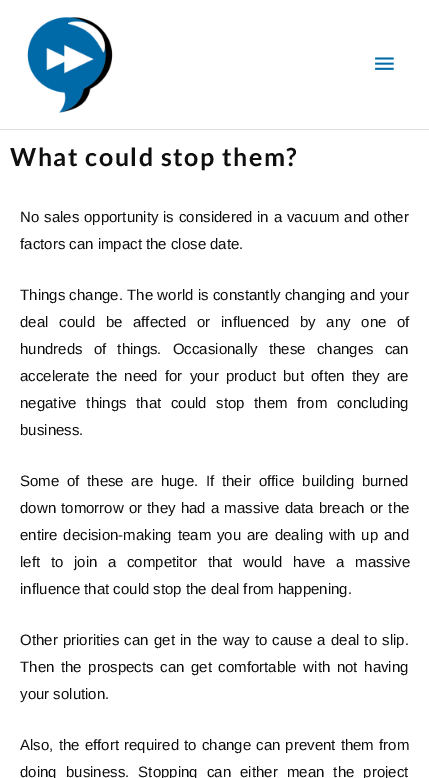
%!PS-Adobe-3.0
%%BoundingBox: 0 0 429 778
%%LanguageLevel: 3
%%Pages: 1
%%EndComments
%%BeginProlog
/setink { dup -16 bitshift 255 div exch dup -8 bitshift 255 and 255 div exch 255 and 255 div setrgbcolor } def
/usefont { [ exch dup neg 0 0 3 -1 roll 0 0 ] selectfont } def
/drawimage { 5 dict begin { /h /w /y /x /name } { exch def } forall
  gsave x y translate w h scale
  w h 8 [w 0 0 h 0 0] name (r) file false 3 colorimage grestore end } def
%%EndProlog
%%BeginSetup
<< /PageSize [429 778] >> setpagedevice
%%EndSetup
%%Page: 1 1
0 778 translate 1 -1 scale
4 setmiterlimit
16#FFFFFF setink
0 0 429 778 rectfill
16#DDDDDD setink
0 129 429 1 rectfill
(img1.raw) 27 17 86 96 drawimage
(img2.raw) 375 57 19 13 drawimage
/Lato-Bold 25 usefont
16#0F0F0F setink
10 166 moveto 1.5 0 (What could stop them?) ashow
/LiberationSans-Regular 15 usefont
20 222 moveto 0.75 0 32 (No sales opportunity is considered in a vacuum and other) widthshow
20 249 moveto (factors can impact the close date.) show
20 300 moveto 0.25 0 32 (Things change. The world is constantly changing and your) widthshow
20 327 moveto 6.5 0 32 (deal could be affected or influenced by any one of) widthshow
20 354 moveto 7 0 32 (hundreds of things. Occasionally these changes can) widthshow
20 381 moveto 3 0 32 (accelerate the need for your product but often they are) widthshow
20 408 moveto 5.5 0 32 (negative things that could stop them from concluding) widthshow
20 435 moveto (business.) show
20 486 moveto 3.5 0 32 (Some of these are huge. If their office building burned) widthshow
20 513 moveto 1 0 32 (down tomorrow or they had a massive data breach or the) widthshow
20 540 moveto 1.75 0 32 (entire decision-making team you are dealing with up and) widthshow
20 567 moveto 6.5 0 32 (left to join a competitor that would have a massive) widthshow
20 594 moveto (influence that could stop the deal from happening.) show
20 645 moveto 1 0 32 (Other priorities can get in the way to cause a deal to slip.) widthshow
20 672 moveto 2.5 0 32 (Then the prospects can get comfortable with not having) widthshow
20 699 moveto (your solution.) show
20 750 moveto 1 0 32 (Also, the effort required to change can prevent them from) widthshow
20 777 moveto 5 0 32 (doing business. Stopping can either mean the project) widthshow
showpage
%%EOF
